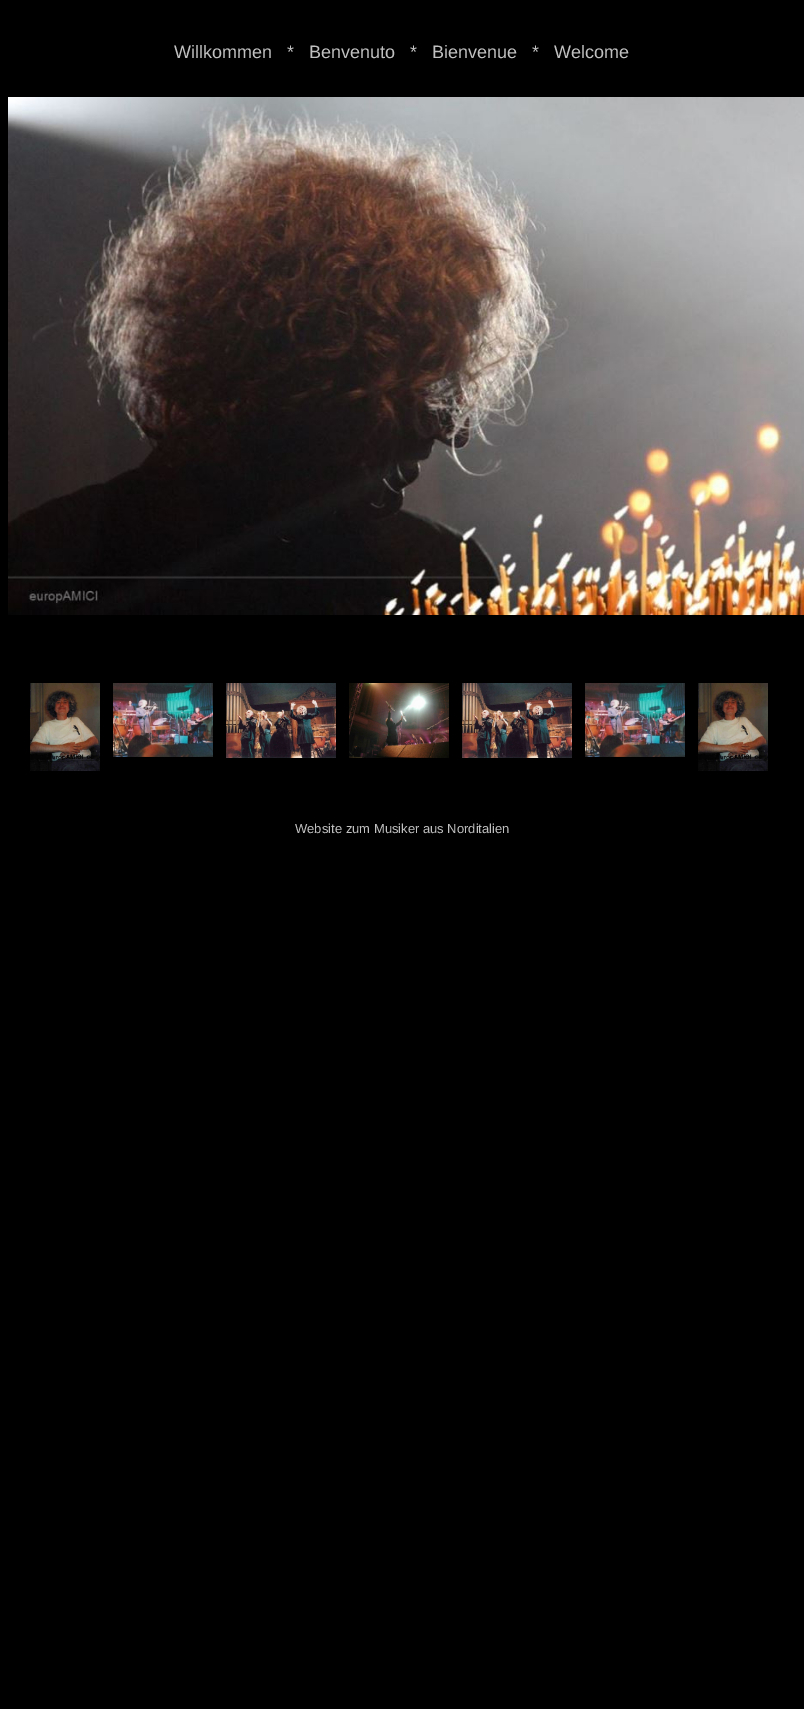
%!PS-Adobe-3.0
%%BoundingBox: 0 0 804 1709
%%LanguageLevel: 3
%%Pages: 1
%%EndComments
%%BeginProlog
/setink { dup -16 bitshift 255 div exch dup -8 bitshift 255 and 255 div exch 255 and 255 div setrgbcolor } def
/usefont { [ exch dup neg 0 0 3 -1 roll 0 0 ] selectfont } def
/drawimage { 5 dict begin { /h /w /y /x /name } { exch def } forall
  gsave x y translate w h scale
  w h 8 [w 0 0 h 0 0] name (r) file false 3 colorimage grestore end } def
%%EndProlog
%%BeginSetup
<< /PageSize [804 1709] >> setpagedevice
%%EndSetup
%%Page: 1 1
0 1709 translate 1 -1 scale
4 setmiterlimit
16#000000 setink
0 0 804 1709 rectfill
/LiberationSans-Regular 18 usefont
16#C0C0C0 setink
174 58 moveto (Willkommen   *   Benvenuto   *   Bienvenue   *   Welcome) show
(img1.raw) 8 97 796 518 drawimage
(img2.raw) 30 683 70 88 drawimage
(img3.raw) 113 683 100 74 drawimage
(img4.raw) 226 683 110 75 drawimage
(img5.raw) 349 683 100 75 drawimage
(img6.raw) 462 683 110 75 drawimage
(img7.raw) 585 683 100 74 drawimage
(img2.raw) 698 683 70 88 drawimage
/LiberationSans-Regular 13 usefont
295 833 moveto (Website zum Musiker aus Norditalien) show
showpage
%%EOF
